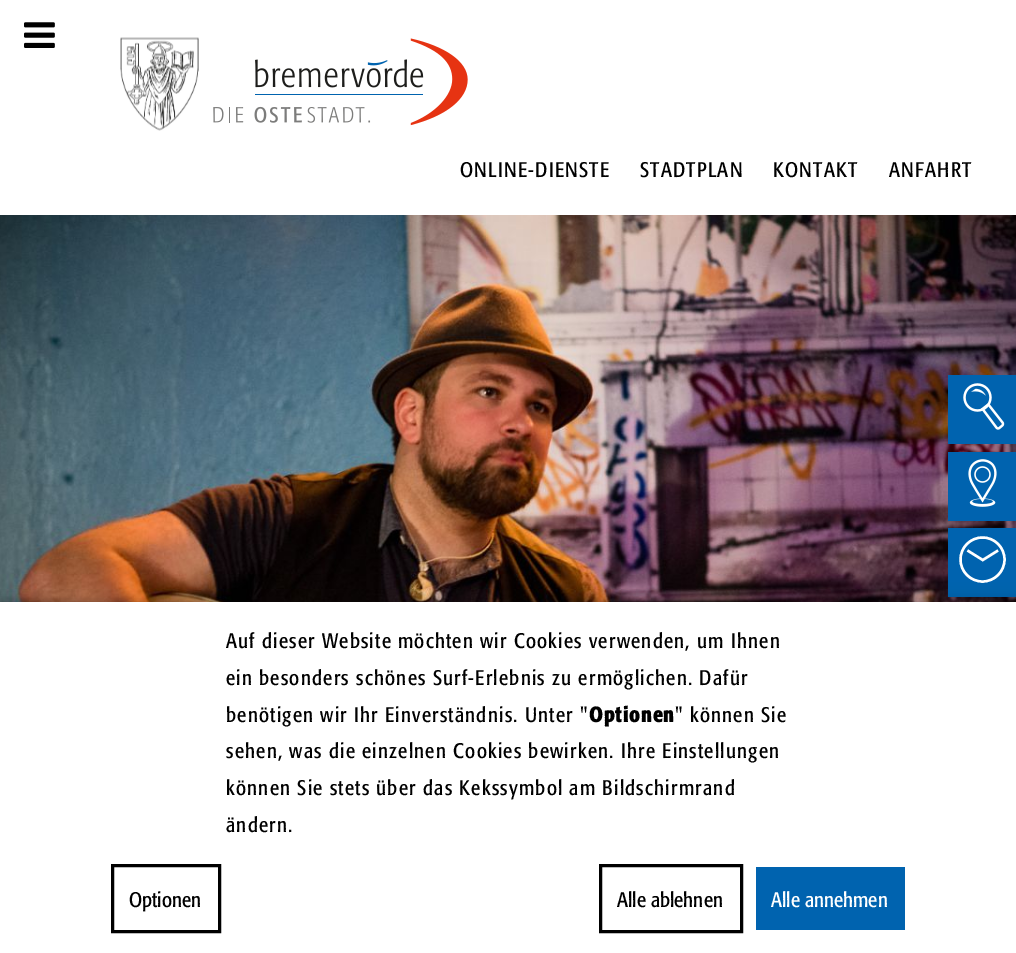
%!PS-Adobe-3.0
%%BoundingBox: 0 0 1016 953
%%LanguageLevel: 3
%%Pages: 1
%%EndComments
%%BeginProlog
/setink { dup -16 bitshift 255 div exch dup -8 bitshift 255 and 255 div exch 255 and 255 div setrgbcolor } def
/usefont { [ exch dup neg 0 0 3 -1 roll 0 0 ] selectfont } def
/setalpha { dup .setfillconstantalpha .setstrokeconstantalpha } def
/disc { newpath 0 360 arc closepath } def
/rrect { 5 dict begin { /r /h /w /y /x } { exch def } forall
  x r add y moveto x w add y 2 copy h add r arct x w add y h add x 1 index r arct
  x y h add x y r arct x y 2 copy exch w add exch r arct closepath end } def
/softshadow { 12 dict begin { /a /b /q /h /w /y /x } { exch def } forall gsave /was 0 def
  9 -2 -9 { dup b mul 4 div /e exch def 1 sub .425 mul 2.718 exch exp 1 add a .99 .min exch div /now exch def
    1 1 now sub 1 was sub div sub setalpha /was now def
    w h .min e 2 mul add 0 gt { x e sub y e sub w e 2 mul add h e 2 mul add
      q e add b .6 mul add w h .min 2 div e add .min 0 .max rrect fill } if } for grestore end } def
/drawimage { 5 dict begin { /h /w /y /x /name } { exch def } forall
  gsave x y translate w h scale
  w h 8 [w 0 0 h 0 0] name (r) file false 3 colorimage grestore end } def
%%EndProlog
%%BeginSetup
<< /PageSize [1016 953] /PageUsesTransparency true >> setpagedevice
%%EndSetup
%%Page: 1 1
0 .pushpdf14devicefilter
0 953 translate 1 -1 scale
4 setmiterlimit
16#FFFFFF setink
0 0 1016 953 rectfill
(img1.raw) 24 22 31 26 drawimage
(img2.raw) 120 37 79 94 drawimage
(img3.raw) 213 38 255 88 drawimage
/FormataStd-Regular 21 usefont
16#000000 setink
460 177 moveto 1.2 0 (ONLINE-DIENSTE) ashow
640 177 moveto 1.2 0 (STADTPLAN) ashow
773 177 moveto 1.2 0 (KONTAKT) ashow
889 177 moveto 1.2 0 (ANFAHRT) ashow
(img4.raw) 0 215 1016 387 drawimage
16#0063AF setink
948 375 68 69 rectfill
(img5.raw) 963 383 42 47 drawimage
948 452 68 69 rectfill
(img6.raw) 968 459 29 48 drawimage
948 528 68 69 rectfill
16#FFFFFF setink
2.4 setlinewidth
982.5 559.5 22 disc stroke
967.5 550.5 moveto 983.5 560.5 lineto 998 550.5 moveto 982 560.5 lineto stroke
16#000000 setink
0 599 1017 352 0 7.5 0.07 softshadow
0 602 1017 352 0 5 0.2 softshadow
16#FFFFFF setink
0 602 1016 351 rectfill
16#000000 setink
226 648 moveto 1.2 0 (Auf dieser Website möchten wir Cookies verwenden, um Ihnen) ashow
226 685 moveto 1.2 0 (ein besonders schönes Surf-Erlebnis zu ermöglichen. Dafür) ashow
226 722 moveto 1.2 0 (benötigen wir Ihr Einverständnis. Unter ") ashow
/FormataStd-Bold 21 usefont
589 722 moveto 1.2 0 (Optionen) ashow
/FormataStd-Regular 21 usefont
675 722 moveto 1.2 0 (" können Sie) ashow
226 758 moveto 1.2 0 (sehen, was die einzelnen Cookies bewirken. Ihre Einstellungen) ashow
226 795 moveto 1.2 0 (können Sie stets über das Kekssymbol am Bildschirmrand) ashow
226 832 moveto 1.2 0 (ändern.) ashow
3 setlinewidth
112.5 865.5 107 66 rectstroke
129 907 moveto (Optionen) show
600.5 865.5 141 66 rectstroke
617 907 moveto (Alle ablehnen) show
16#0063AF setink
756 867 149 63 rectfill
16#FFFFFF setink
771 907 moveto (Alle annehmen) show
.poppdf14devicefilter showpage
%%EOF
